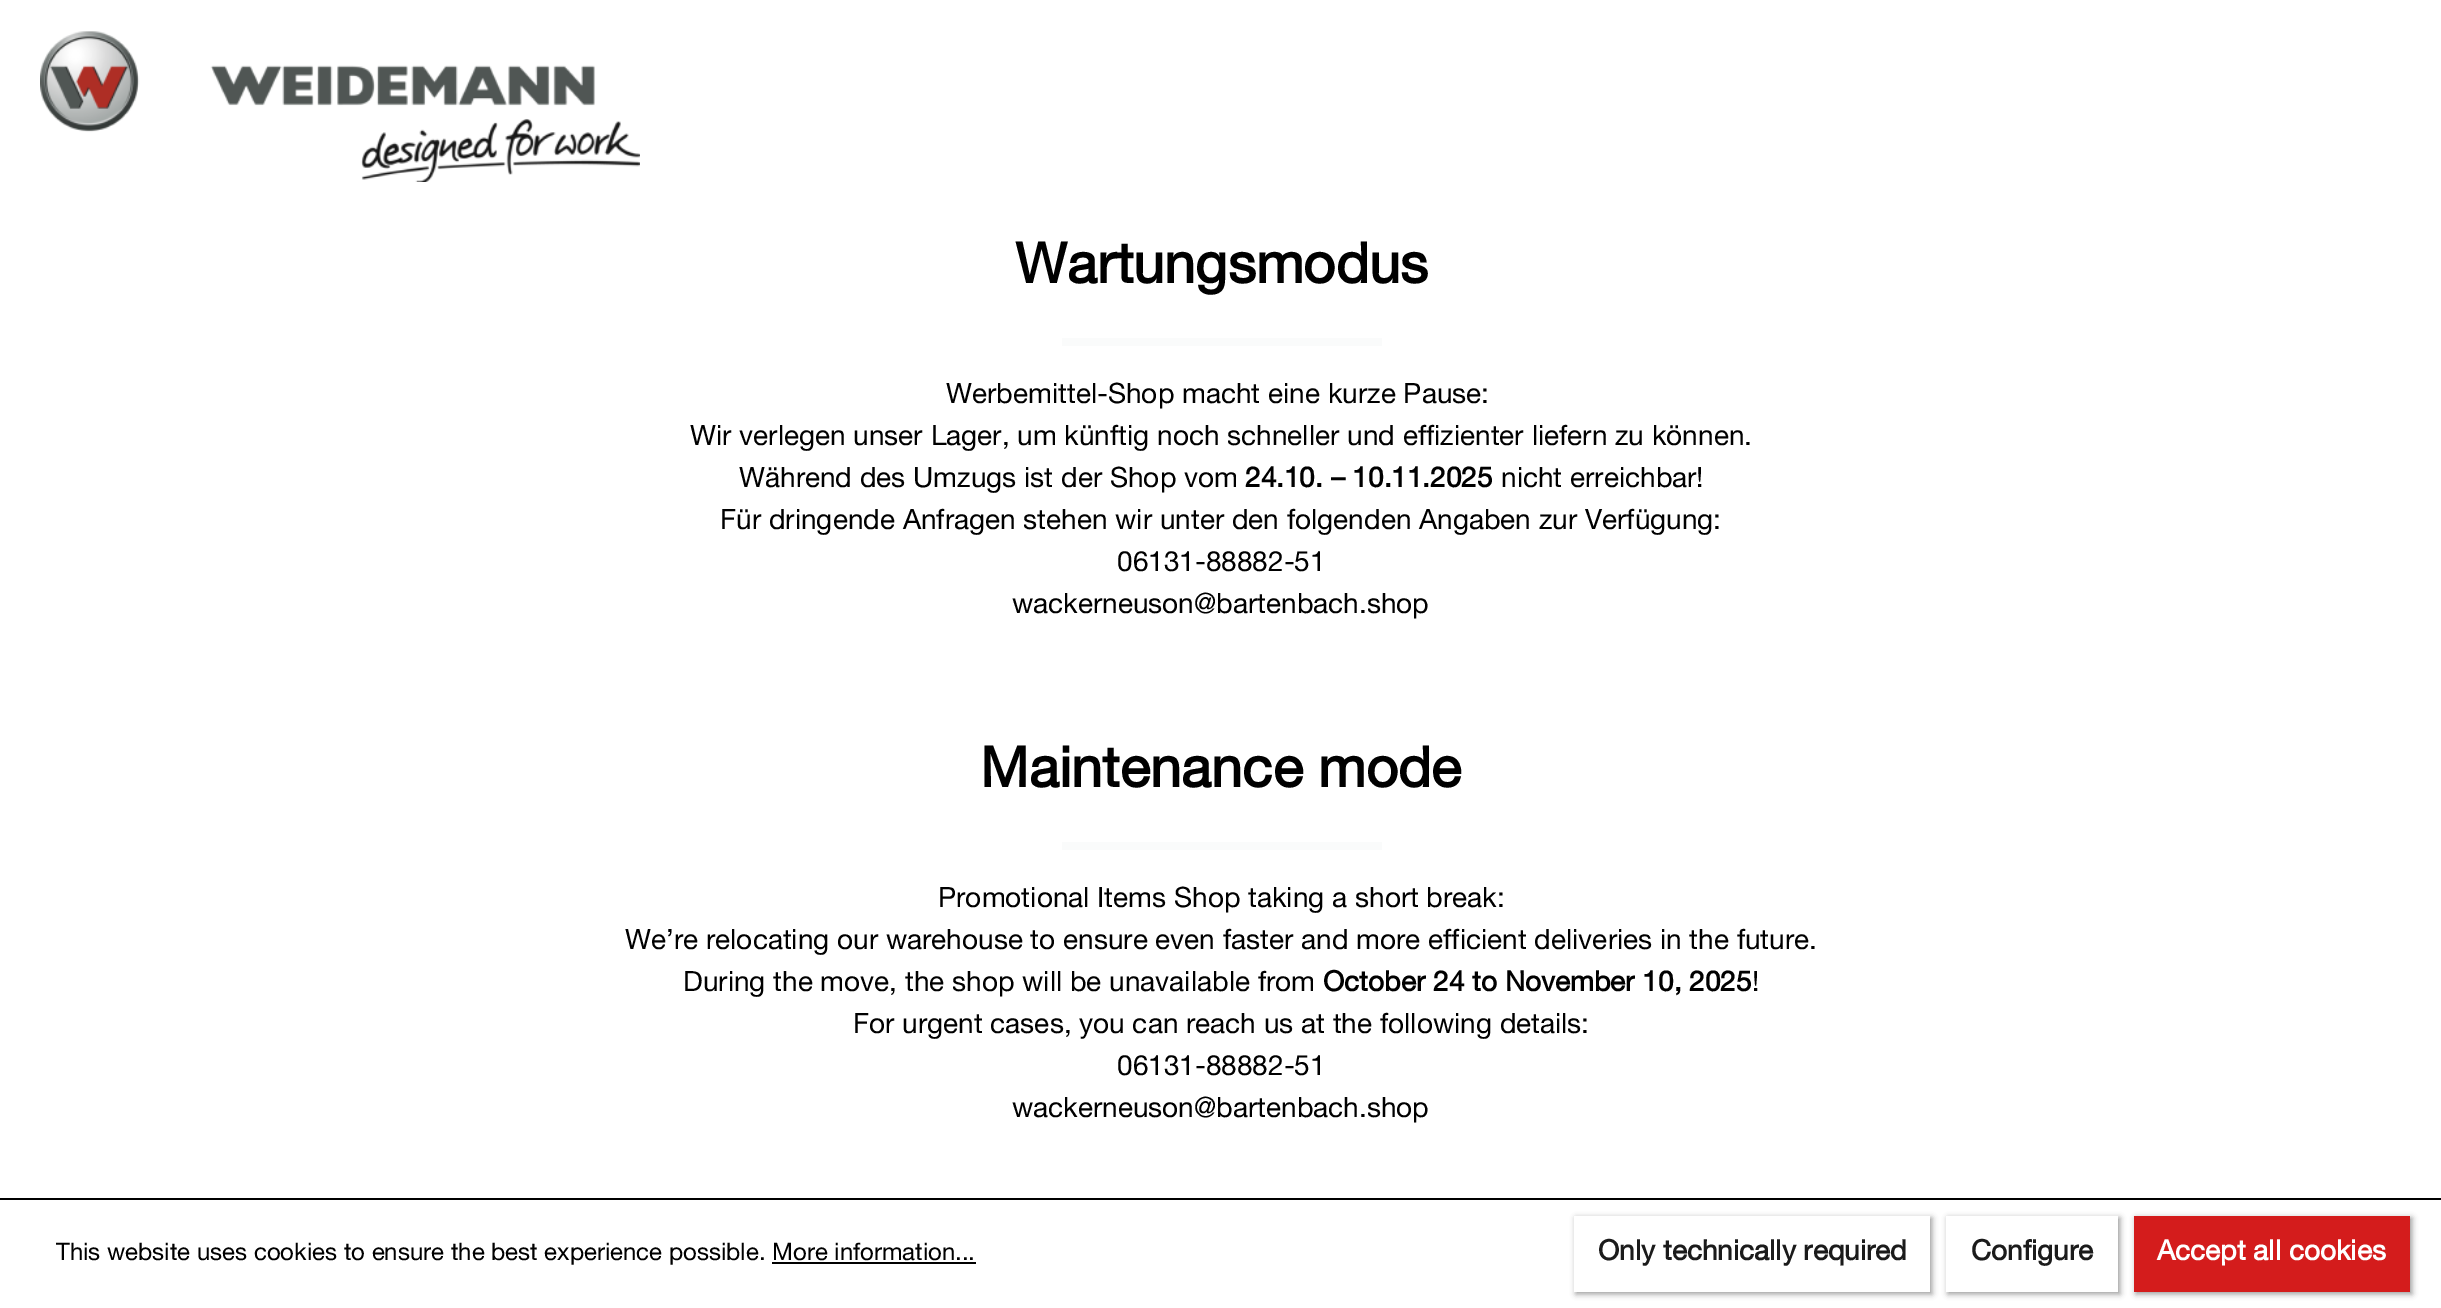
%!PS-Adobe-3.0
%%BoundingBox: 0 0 2441 1308
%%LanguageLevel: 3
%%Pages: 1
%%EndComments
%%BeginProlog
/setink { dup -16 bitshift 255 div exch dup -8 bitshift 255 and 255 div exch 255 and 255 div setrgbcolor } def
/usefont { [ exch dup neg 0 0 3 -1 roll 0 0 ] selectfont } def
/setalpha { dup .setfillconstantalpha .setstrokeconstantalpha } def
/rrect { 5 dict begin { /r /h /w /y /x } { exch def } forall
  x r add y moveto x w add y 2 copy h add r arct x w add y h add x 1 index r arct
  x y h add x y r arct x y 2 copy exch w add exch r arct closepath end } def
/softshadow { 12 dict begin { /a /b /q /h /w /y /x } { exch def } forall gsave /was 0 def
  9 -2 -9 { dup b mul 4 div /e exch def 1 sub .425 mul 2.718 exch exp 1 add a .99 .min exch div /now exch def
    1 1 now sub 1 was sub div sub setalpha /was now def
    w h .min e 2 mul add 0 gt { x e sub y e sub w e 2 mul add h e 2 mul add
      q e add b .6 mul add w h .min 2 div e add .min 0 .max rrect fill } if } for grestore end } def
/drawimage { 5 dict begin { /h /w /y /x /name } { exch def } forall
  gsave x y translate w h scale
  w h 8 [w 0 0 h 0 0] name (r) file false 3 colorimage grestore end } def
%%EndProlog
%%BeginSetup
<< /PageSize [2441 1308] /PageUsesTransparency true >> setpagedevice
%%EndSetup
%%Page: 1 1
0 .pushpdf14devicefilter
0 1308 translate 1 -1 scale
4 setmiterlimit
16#FFFFFF setink
0 0 2441 1308 rectfill
(img1.raw) 40 31 600 151 drawimage
/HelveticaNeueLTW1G-Bold 56 usefont
16#000000 setink
1015 283 moveto (Wartungsmodus) show
16#FAFBFB setink
1062 338 320 8 rectfill
/HelveticaNeueLTW1G-Regular 28 usefont
16#000000 setink
[
    [(Werbemittel-Shop macht eine kurze Pause:) 946 403]
    [(Wir verlegen unser Lager, um künftig noch schneller und effizienter liefern zu können.) 690 445]
    [(Während des Umzugs ist der Shop vom) 739 487]
] { aload pop moveto show } forall
/HelveticaNeueLTW1G-Bold 28 usefont
1245 487 moveto (24.10. – 10.11.2025) show
/HelveticaNeueLTW1G-Regular 28 usefont
[
    [(nicht erreichbar!) 1501 487]
    [(Für dringende Anfragen stehen wir unter den folgenden Angaben zur Verfügung:) 720 529]
    [(06131-88882-51) 1117 571]
    [(wackerneuson@bartenbach.shop) 1012 613]
] { aload pop moveto show } forall
/HelveticaNeueLTW1G-Bold 56 usefont
980 787 moveto (Maintenance mode) show
16#FAFBFB setink
1062 842 320 8 rectfill
/HelveticaNeueLTW1G-Regular 28 usefont
16#000000 setink
[
    [(Promotional Items Shop taking a short break:) 938 907]
    [(We’re relocating our warehouse to ensure even faster and more efficient deliveries in the future.) 625 949]
    [(During the move, the shop will be unavailable from) 683 991]
] { aload pop moveto show } forall
/HelveticaNeueLTW1G-Bold 28 usefont
1323 991 moveto (October 24 to November 10, 2025) show
/HelveticaNeueLTW1G-Regular 28 usefont
[
    [(!) 1752 991]
    [(For urgent cases, you can reach us at the following details:) 853 1033]
    [(06131-88882-51) 1117 1075]
    [(wackerneuson@bartenbach.shop) 1012 1117]
] { aload pop moveto show } forall
0 1198 2441 2 rectfill
/HelveticaNeueLTW1G-Regular 24 usefont
56 1260 moveto (This website uses cookies to ensure the best experience possible. More information...) show
772 1262 204 2 rectfill
gsave
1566 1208 moveto 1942 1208 lineto 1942 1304 lineto 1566 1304 lineto closepath 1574 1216 moveto 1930 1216 lineto 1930 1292 lineto 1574 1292 lineto closepath eoclip newpath
1576 1218 356 76 0 3 0.4 softshadow
grestore
/HelveticaNeueLTW1G-Bold 28 usefont
16#1B1B1B setink
1598 1260 moveto (Only technically required) show
gsave
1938 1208 moveto 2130 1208 lineto 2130 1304 lineto 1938 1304 lineto closepath 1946 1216 moveto 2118 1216 lineto 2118 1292 lineto 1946 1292 lineto closepath eoclip newpath
16#000000 setink
1948 1218 172 76 0 3 0.4 softshadow
grestore
1971 1260 moveto (Configure) show
16#000000 setink
2136 1218 276 76 0 3 0.4 softshadow
16#D41C1C setink
2134 1216 276 76 rectfill
16#FFFFFF setink
2157 1260 moveto (Accept all cookies) show
.poppdf14devicefilter showpage
%%EOF
